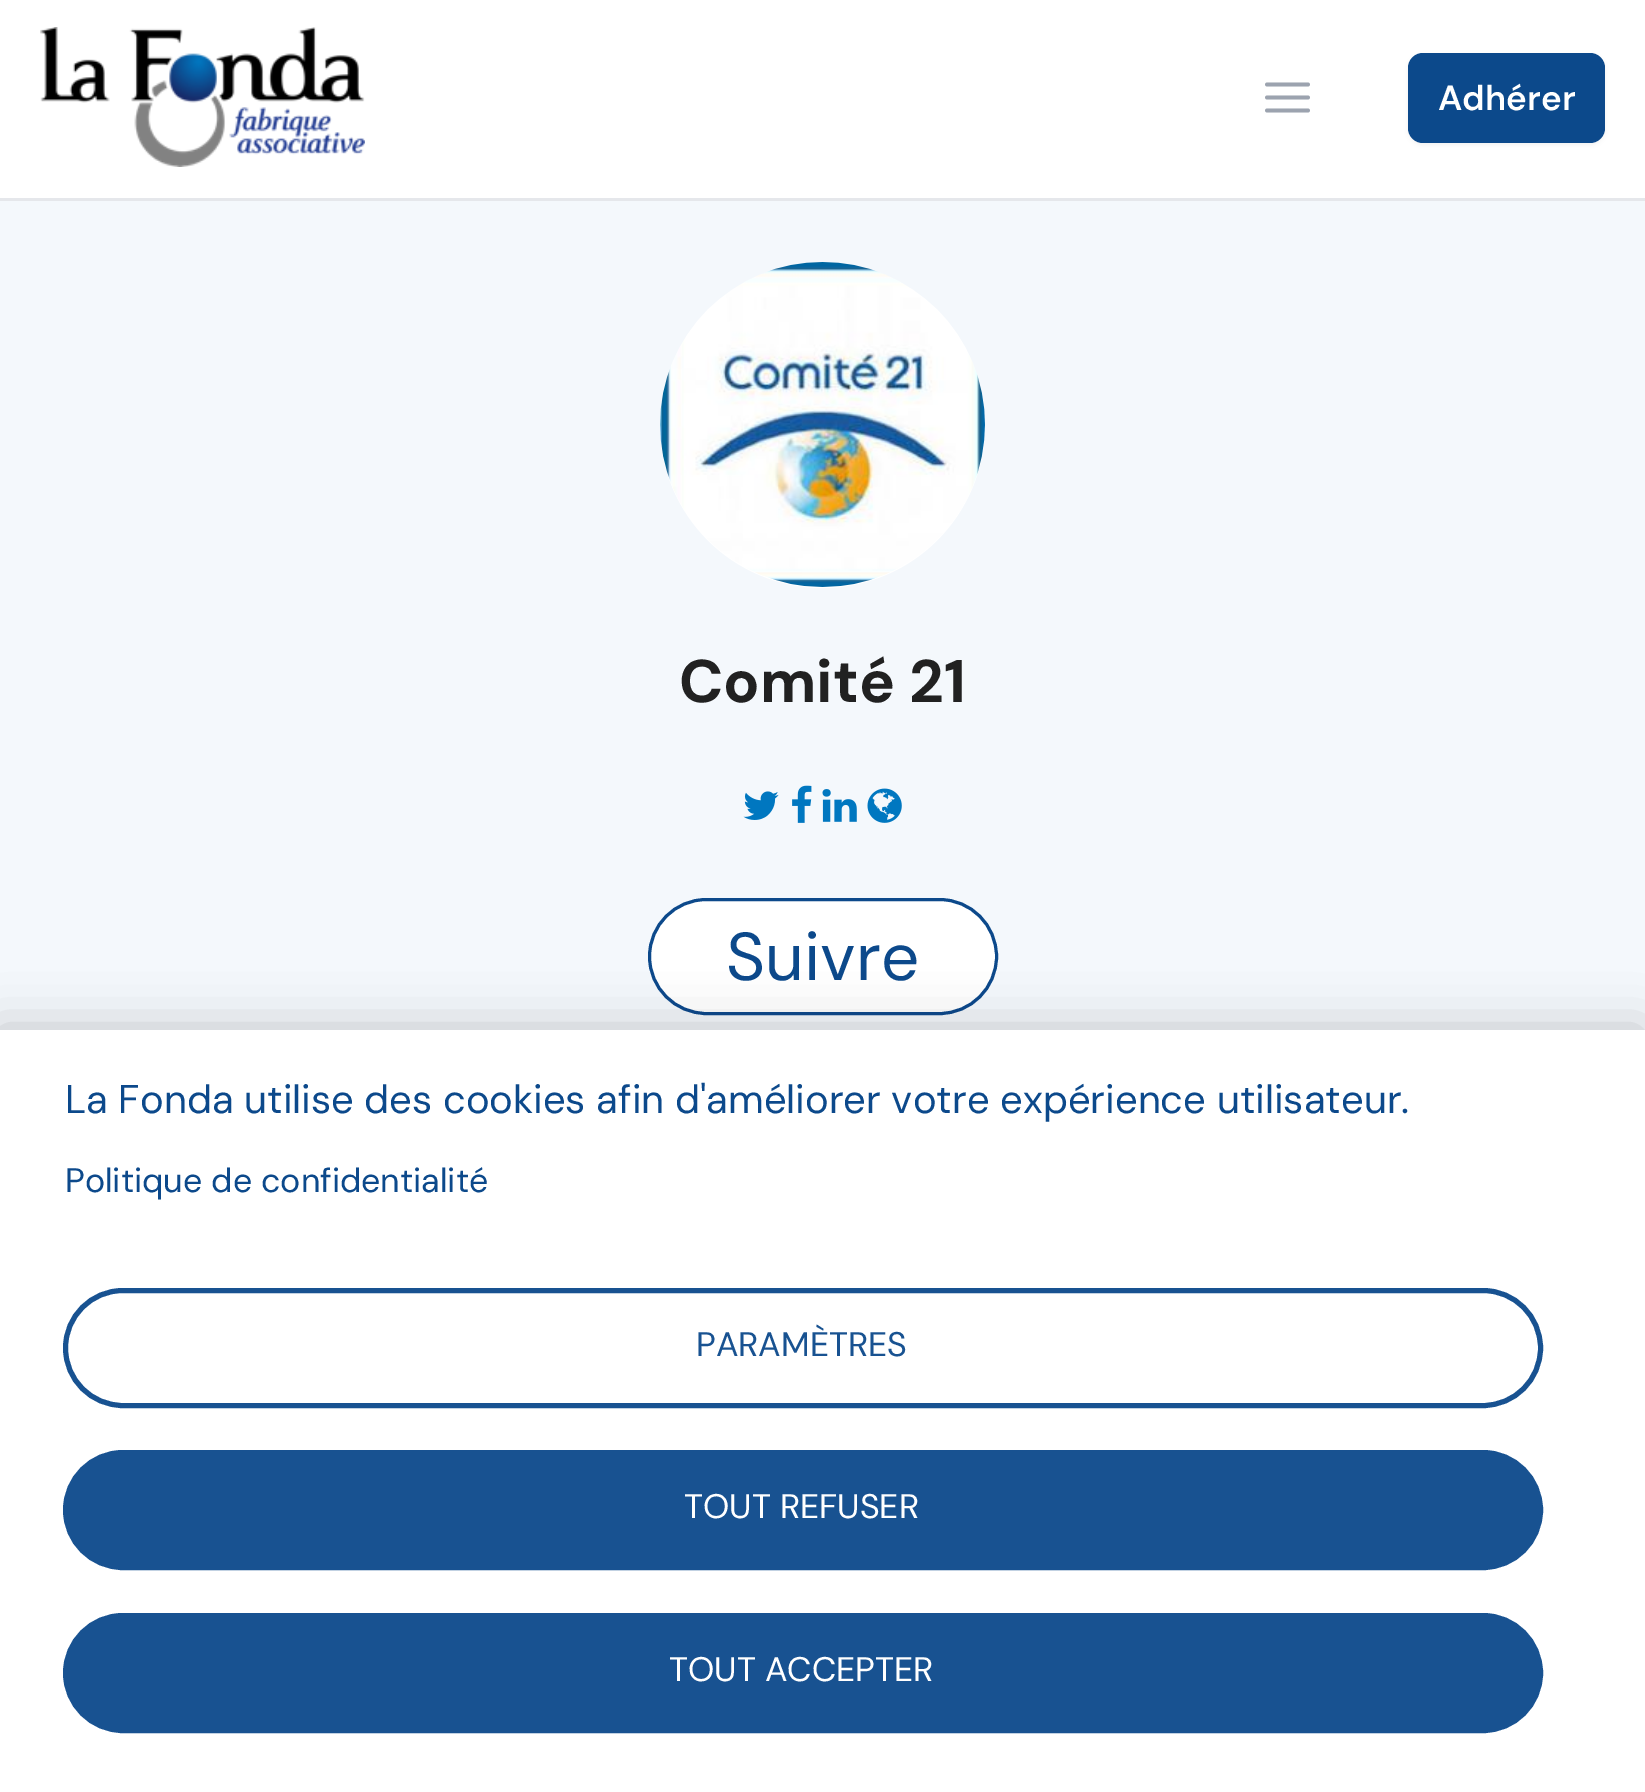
%!PS-Adobe-3.0
%%BoundingBox: 0 0 1645 1792
%%LanguageLevel: 3
%%Pages: 1
%%EndComments
%%BeginProlog
/setink { dup -16 bitshift 255 div exch dup -8 bitshift 255 and 255 div exch 255 and 255 div setrgbcolor } def
/usefont { [ exch dup neg 0 0 3 -1 roll 0 0 ] selectfont } def
/setalpha { dup .setfillconstantalpha .setstrokeconstantalpha } def
/disc { newpath 0 360 arc closepath } def
/rrect { 5 dict begin { /r /h /w /y /x } { exch def } forall
  x r add y moveto x w add y 2 copy h add r arct x w add y h add x 1 index r arct
  x y h add x y r arct x y 2 copy exch w add exch r arct closepath end } def
/softshadow { 12 dict begin { /a /b /q /h /w /y /x } { exch def } forall gsave /was 0 def
  9 -2 -9 { dup b mul 4 div /e exch def 1 sub .425 mul 2.718 exch exp 1 add a .99 .min exch div /now exch def
    1 1 now sub 1 was sub div sub setalpha /was now def
    w h .min e 2 mul add 0 gt { x e sub y e sub w e 2 mul add h e 2 mul add
      q e add b .6 mul add w h .min 2 div e add .min 0 .max rrect fill } if } for grestore end } def
/drawimage { 5 dict begin { /h /w /y /x /name } { exch def } forall
  gsave x y translate w h scale
  w h 8 [w 0 0 h 0 0] name (r) file false 3 colorimage grestore end } def
%%EndProlog
%%BeginSetup
<< /PageSize [1645 1792] /PageUsesTransparency true >> setpagedevice
%%EndSetup
%%Page: 1 1
0 .pushpdf14devicefilter
0 1792 translate 1 -1 scale
4 setmiterlimit
16#FFFFFF setink
0 0 1645 1792 rectfill
16#E5E7EB setink
0 198 1645 3 rectfill
(img1.raw) 40 27 325 140 drawimage
16#9CA3AF setink
3.8 setlinewidth
1 setlinecap
1 setlinejoin
1267 84.5 moveto 1308 84.5 lineto 1267 97.5 moveto 1308 97.5 lineto 1267 110.5 moveto 1308 110.5 lineto stroke
16#000000 setink
1408 55 197 90 15 2.5 0.05 softshadow
16#0C498B setink
1408 53 197 90 15 rrect fill
/DMSans-SemiBold 35 usefont
16#FFFFFF setink
1438 110 moveto (Adhérer) show
16#F4F8FC setink
0 201 1645 829 rectfill
16#FFFFFF setink
822.5 425.5 162.5 disc fill
(img2.raw) 660 262 325 325 drawimage
/DMSans-Bold 60 usefont
16#212121 setink
679 702 moveto (Comité 21) show
(img3.raw) 743 791 36 29 drawimage
(img4.raw) 792 785 20 38 drawimage
(img5.raw) 822 789 35 33 drawimage
(img6.raw) 867 788 35 35 drawimage
16#FFFFFF setink
649.5 899.5 347 114 57 rrect gsave fill grestore
16#0C498B setink
3 setlinewidth
0 setlinecap
0 setlinejoin
stroke
/DMSans-Regular 67.5 usefont
726 980 moveto (Suivre) show
16#000000 setink
-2 1028 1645 762 0 25 0.2 softshadow
16#FFFFFF setink
0 1030 1645 762 rectfill
/DMSans-Regular 40 usefont
16#0C498B setink
65 1113 moveto (La Fonda utilise des cookies afin d'améliorer votre expérience utilisateur.) show
/DMSans-Regular 34 usefont
65 1192 moveto (Politique de confidentialité) show
16#185291 setink
5 setlinewidth
65.5 1290.5 1475 115 57.5 rrect stroke
696 1356 moveto (PARAMÈTRES) show
65.5 1452.5 1475 115 57.5 rrect gsave fill grestore
stroke
16#FFFFFF setink
684 1518 moveto (TOUT REFUSER) show
16#185291 setink
65.5 1615.5 1475 115 57.5 rrect gsave fill grestore
stroke
16#FFFFFF setink
669 1681 moveto (TOUT ACCEPTER) show
.poppdf14devicefilter showpage
%%EOF
